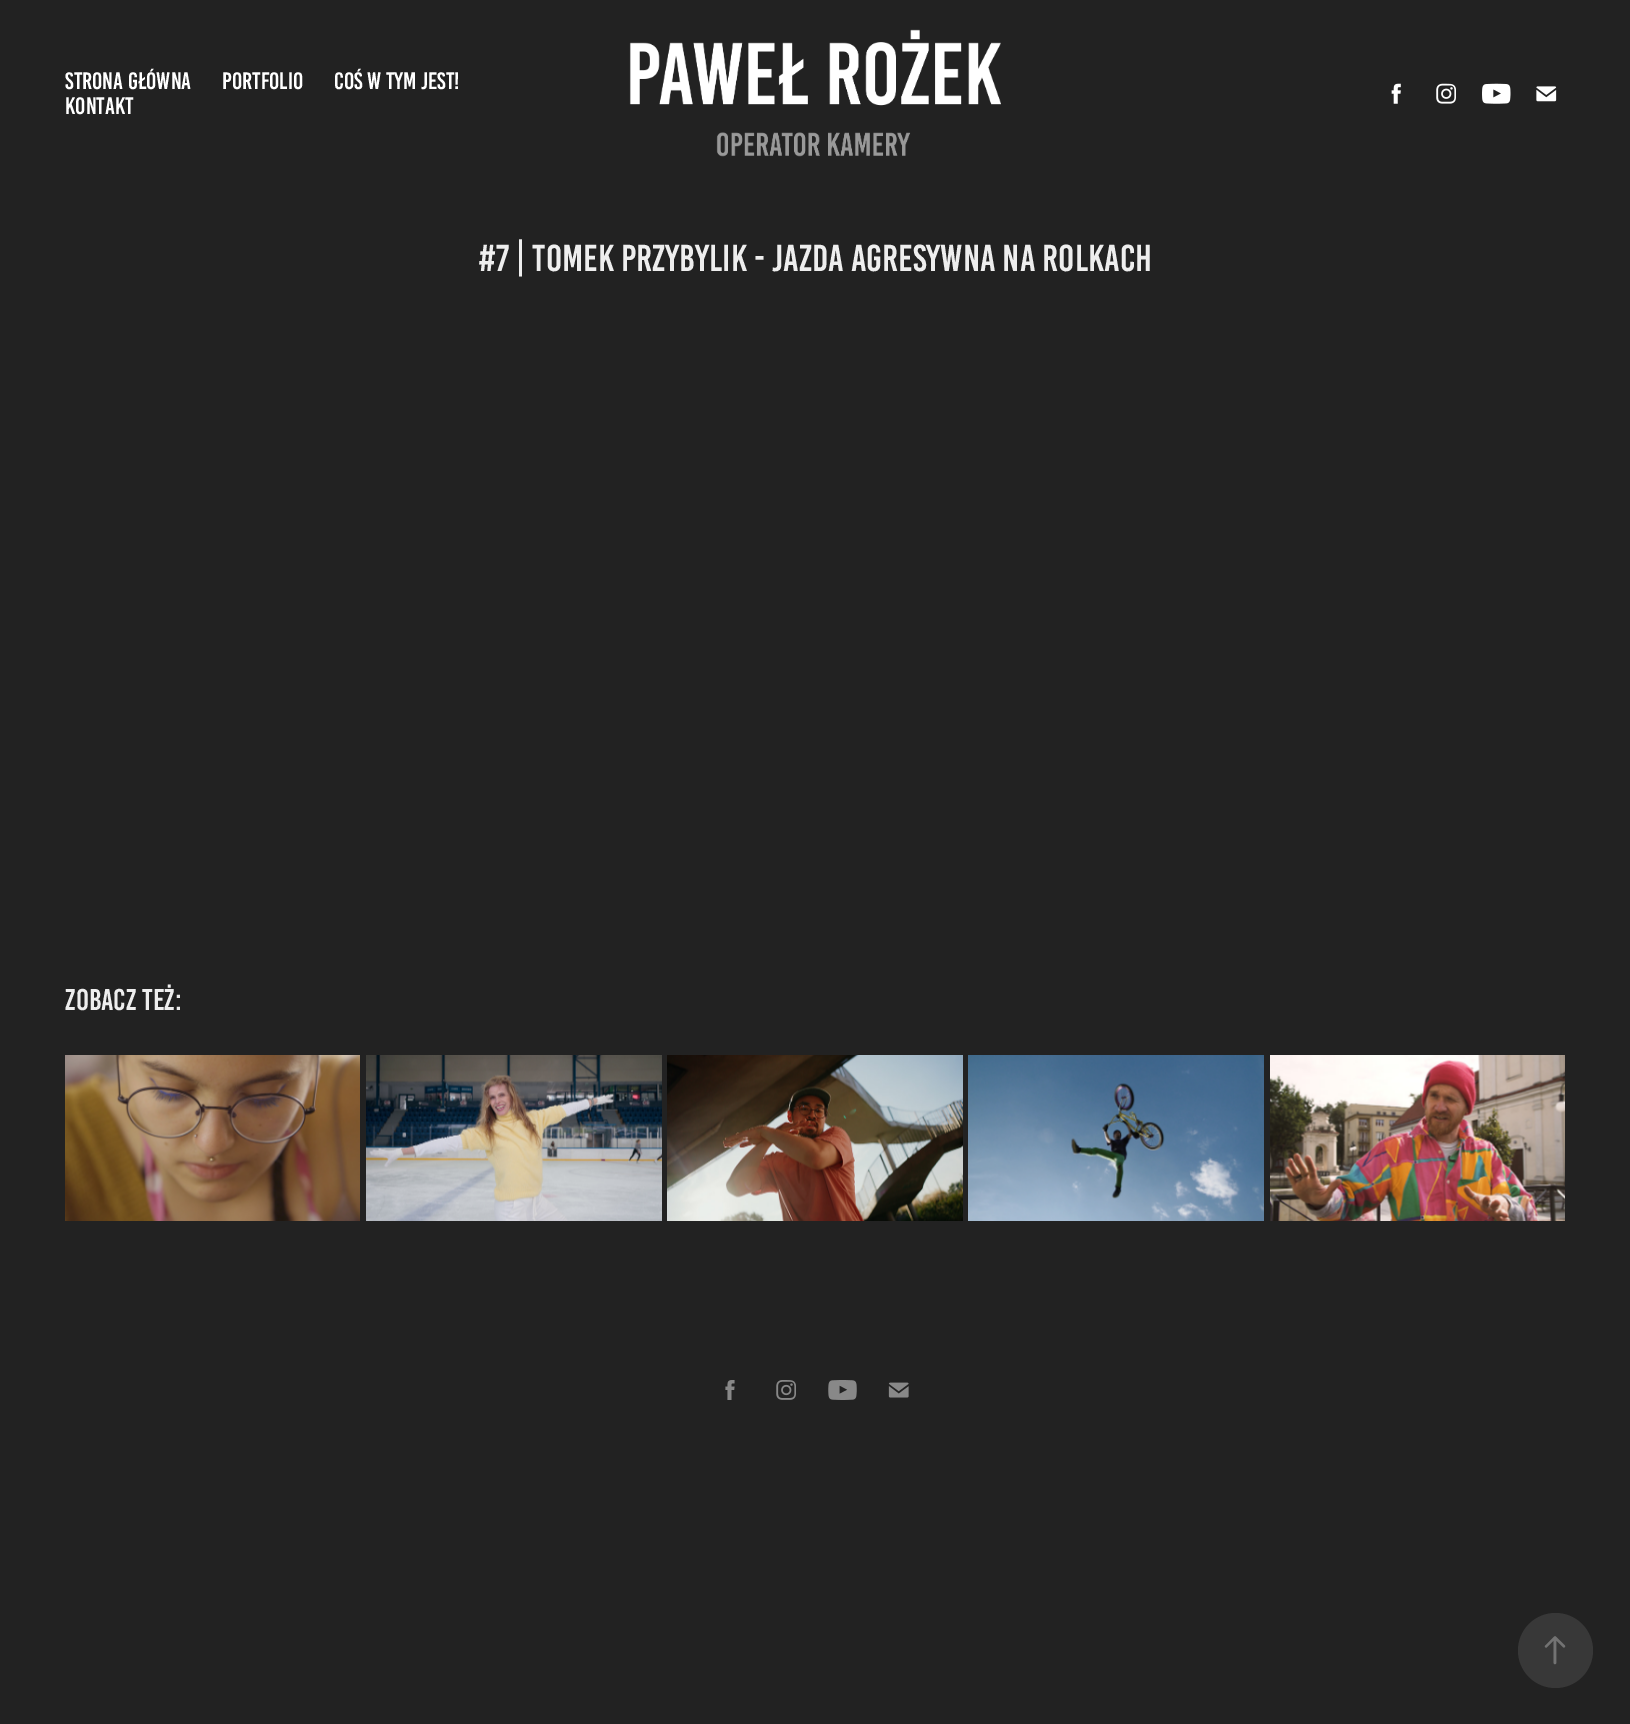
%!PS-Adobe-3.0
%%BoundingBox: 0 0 1630 1724
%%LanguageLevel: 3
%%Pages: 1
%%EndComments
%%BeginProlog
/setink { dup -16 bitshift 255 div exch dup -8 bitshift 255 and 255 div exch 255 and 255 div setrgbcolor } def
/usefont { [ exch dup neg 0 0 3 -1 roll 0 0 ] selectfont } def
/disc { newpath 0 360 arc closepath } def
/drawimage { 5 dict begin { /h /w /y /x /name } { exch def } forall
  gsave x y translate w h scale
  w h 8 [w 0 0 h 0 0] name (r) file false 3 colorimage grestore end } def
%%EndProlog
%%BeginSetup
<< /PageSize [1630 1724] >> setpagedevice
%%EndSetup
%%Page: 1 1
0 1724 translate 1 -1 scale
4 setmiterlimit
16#222222 setink
0 0 1630 1724 rectfill
/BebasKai-Regular 23.75 usefont
16#FFFFFF setink
[
    [(STRONA GŁÓWNA) 65 89]
    [(PORTFOLIO) 222 89]
    [(COŚ W TYM JEST!) 334 89]
    [(KONTAKT) 65 114]
] { aload pop moveto show } forall
(img1.raw) 629 29 372 128 drawimage
(img2.raw) 1391 83 10 21 drawimage
(img3.raw) 1436 83 20 21 drawimage
(img4.raw) 1482 83 29 21 drawimage
(img5.raw) 1536 86 21 16 drawimage
/BebasKai-Regular 37.5 usefont
16#EEEEEE setink
478 271 moveto (#7 | Tomek Przybylik - Jazda agresywna na rolkach) show
/BebasKai-Regular 30 usefont
65 1010 moveto (Zobacz też:) show
(img6.raw) 65 1055 295 166 drawimage
(img7.raw) 366 1055 296 166 drawimage
(img8.raw) 667 1055 296 166 drawimage
(img9.raw) 968 1055 296 166 drawimage
(img10.raw) 1270 1055 295 166 drawimage
16#383838 setink
1555.5 1650.5 37.5 disc fill
(img11.raw) 1544 1636 22 29 drawimage
(img12.raw) 725 1380 10 20 drawimage
(img13.raw) 776 1380 20 20 drawimage
(img14.raw) 828 1380 29 20 drawimage
(img15.raw) 888 1382 21 16 drawimage
showpage
%%EOF
